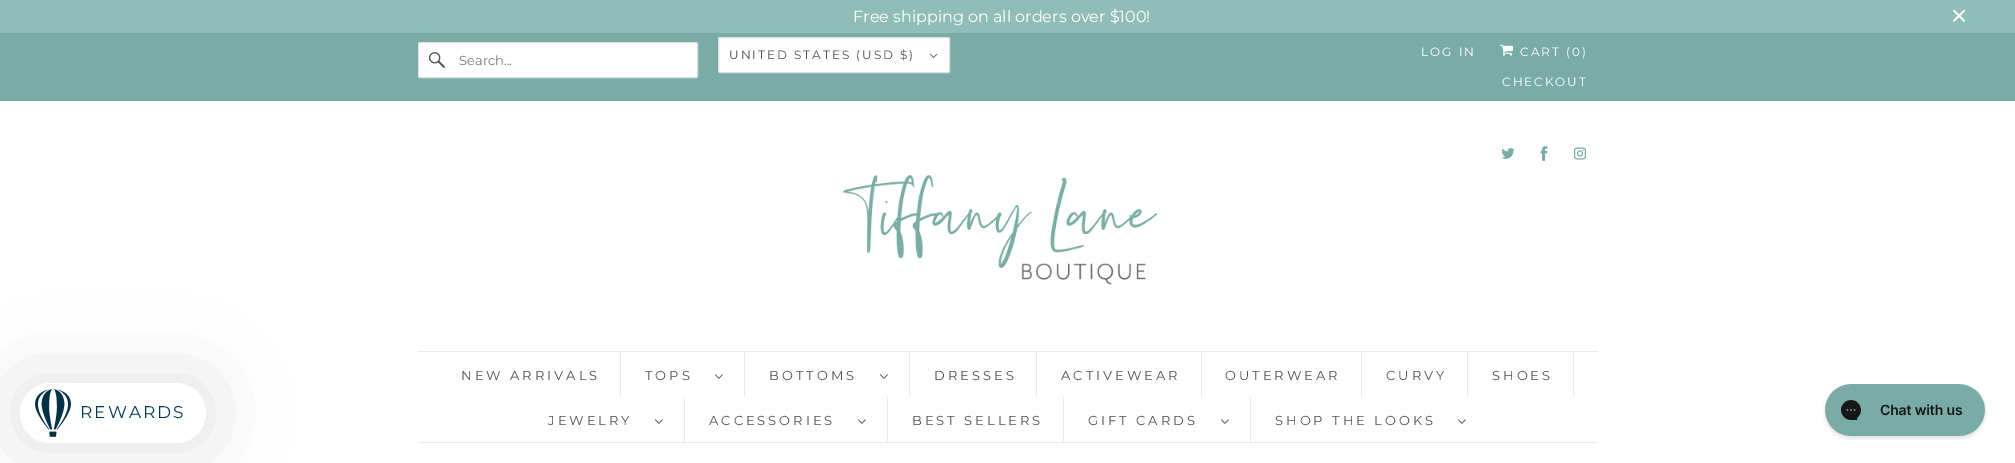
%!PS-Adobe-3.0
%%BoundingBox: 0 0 2015 463
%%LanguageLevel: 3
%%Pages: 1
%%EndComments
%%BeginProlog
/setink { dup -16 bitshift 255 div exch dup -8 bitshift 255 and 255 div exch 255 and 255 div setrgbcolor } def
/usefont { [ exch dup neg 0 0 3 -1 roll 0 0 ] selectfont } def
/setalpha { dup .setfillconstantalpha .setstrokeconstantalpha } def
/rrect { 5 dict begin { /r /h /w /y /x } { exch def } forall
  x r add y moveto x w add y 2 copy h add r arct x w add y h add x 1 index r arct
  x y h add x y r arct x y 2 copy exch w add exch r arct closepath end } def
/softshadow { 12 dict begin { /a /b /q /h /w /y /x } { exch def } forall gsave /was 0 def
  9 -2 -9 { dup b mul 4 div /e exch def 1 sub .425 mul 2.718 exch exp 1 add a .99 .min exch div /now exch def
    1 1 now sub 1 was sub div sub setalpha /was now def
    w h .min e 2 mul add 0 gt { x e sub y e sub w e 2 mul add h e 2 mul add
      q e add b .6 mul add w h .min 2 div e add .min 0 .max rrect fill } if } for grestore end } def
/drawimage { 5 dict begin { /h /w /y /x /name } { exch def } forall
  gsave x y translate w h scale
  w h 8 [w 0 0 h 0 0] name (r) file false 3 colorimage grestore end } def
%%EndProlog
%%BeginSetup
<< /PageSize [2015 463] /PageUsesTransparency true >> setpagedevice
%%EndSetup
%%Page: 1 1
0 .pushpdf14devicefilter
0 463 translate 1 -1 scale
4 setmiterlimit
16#FFFFFF setink
0 0 2015 463 rectfill
16#000000 setink
20 383 186 60 30 40 0.12 softshadow
16#FFFFFF setink
20 383 186 60 30 rrect fill
(img1.raw) 35 389 36 48 drawimage
/Montserrat-Regular 17 usefont
16#033950 setink
80 418 moveto 2 0 (REWARDS) ashow
16#90BDB8 setink
0 0 2015 33 rectfill
/Montserrat-Regular 16 usefont
16#FFFFFF setink
853 22 moveto (Free shipping on all orders over $100!) show
(img2.raw) 1953 9 12 13 drawimage
16#79ACA6 setink
0 33 2015 68 rectfill
16#FFFFFF setink
418.5 42.5 279 35 1.5 rrect gsave fill grestore
16#DFDFDF setink
stroke
(img3.raw) 429 52 16 16 drawimage
/Montserrat-Regular 13 usefont
16#757575 setink
459 65 moveto (Search...) show
16#FFFFFF setink
718.5 37.5 231 35 1.5 rrect gsave fill grestore
16#DFDFDF setink
stroke
/Montserrat-Regular 12 usefont
16#4E4E4E setink
729 59 moveto 2 0 (UNITED STATES \(USD $\)) ashow
(img4.raw) 930 53 8 5 drawimage
16#FFFFFF setink
1421 56 moveto 2 0 (LOG IN) ashow
(img5.raw) 1500 44 13 12 drawimage
1520 56 moveto 2 0 (CART \(0\)) ashow
1502 86 moveto 2 0 (CHECKOUT) ashow
(img6.raw) 1501 148 14 11 drawimage
(img7.raw) 1540 146 8 15 drawimage
(img8.raw) 1573 147 14 13 drawimage
(img9.raw) 843 175 315 110 drawimage
[
    [418 351 1180 1 16#E1EEEC]
    [418 442 1180 1 16#E1EEEC]
    [620 352 1 45 16#E1EEEC]
] { aload pop setink rectfill } forall
/Montserrat-Regular 13 usefont
16#4E4E4E setink
461 380 moveto 3 0 (NEW ARRIVALS) ashow
16#E1EEEC setink
744 352 1 45 rectfill
16#4E4E4E setink
645 380 moveto 3 0 (TOPS) ashow
(img10.raw) 715 374 8 5 drawimage
16#E1EEEC setink
909 352 1 45 rectfill
16#4E4E4E setink
769 380 moveto 3 0 (BOTTOMS) ashow
(img10.raw) 880 374 8 5 drawimage
16#E1EEEC setink
1036 352 1 45 rectfill
16#4E4E4E setink
934 380 moveto 3 0 (DRESSES) ashow
16#E1EEEC setink
1201 352 1 45 rectfill
16#4E4E4E setink
1061 380 moveto 3 0 (ACTIVEWEAR) ashow
16#E1EEEC setink
1361 352 1 45 rectfill
16#4E4E4E setink
1225 380 moveto 3 0 (OUTERWEAR) ashow
16#E1EEEC setink
1467 352 1 45 rectfill
16#4E4E4E setink
1386 380 moveto 3 0 (CURVY) ashow
16#E1EEEC setink
1573 352 1 45 rectfill
16#4E4E4E setink
1492 380 moveto 3 0 (SHOES) ashow
16#E1EEEC setink
684 397 1 45 rectfill
16#4E4E4E setink
548 425 moveto 3 0 (JEWELRY) ashow
(img10.raw) 655 419 8 5 drawimage
16#E1EEEC setink
887 397 1 45 rectfill
16#4E4E4E setink
709 425 moveto 3 0 (ACCESSORIES) ashow
(img10.raw) 858 419 8 5 drawimage
16#E1EEEC setink
1063 397 1 45 rectfill
16#4E4E4E setink
912 425 moveto 3 0 (BEST SELLERS) ashow
16#E1EEEC setink
1250 397 1 45 rectfill
16#4E4E4E setink
1088 425 moveto 3 0 (GIFT CARDS) ashow
(img10.raw) 1221 419 8 5 drawimage
1275 425 moveto 3 0 (SHOP THE LOOKS) ashow
(img10.raw) 1458 419 8 5 drawimage
(img11.raw) 1823 384 164 56 drawimage
.poppdf14devicefilter showpage
%%EOF
